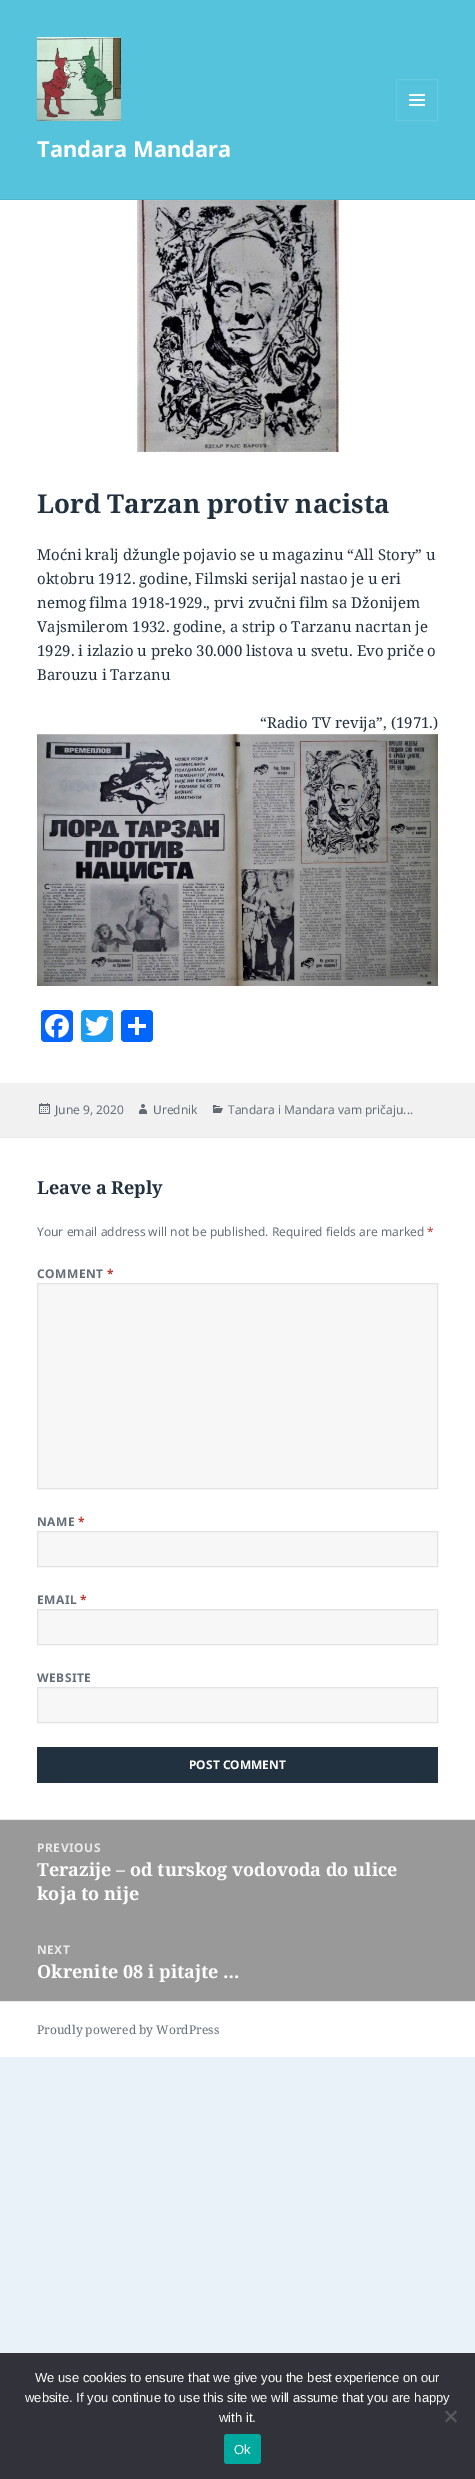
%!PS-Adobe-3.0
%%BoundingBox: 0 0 475 2479
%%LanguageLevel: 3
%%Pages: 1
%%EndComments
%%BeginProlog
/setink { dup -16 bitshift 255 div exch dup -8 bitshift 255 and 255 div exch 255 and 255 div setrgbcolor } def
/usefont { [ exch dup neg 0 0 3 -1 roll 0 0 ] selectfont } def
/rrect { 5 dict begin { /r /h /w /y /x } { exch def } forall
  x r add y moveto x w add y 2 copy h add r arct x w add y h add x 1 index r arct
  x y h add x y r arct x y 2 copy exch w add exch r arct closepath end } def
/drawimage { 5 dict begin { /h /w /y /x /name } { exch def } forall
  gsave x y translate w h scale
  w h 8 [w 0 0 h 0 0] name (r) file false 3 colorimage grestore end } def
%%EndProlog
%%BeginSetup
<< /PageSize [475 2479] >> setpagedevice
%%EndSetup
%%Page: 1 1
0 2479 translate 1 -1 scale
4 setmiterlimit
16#E9F2F9 setink
0 0 475 2479 rectfill
16#55C3DC setink
0 0 475 199 rectfill
16#50B4CC setink
0 199 475 1 rectfill
(img1.raw) 37 37 84 84 drawimage
16#66C9E0 setink
396.5 79.5 41 41 rectstroke
(img2.raw) 409 94 16 12 drawimage
/NotoSans-Bold 22 usefont
16#FFFFFF setink
37 157 moveto (Tandara Mandara) show
0 200 475 883 rectfill
(img3.raw) 137 200 204 252 drawimage
/NotoSerif-Bold 26 usefont
16#22313F setink
37 513 moveto (Lord Tarzan protiv nacista) show
/NotoSerif-Regular 15 usefont
[
    [(Moćni kralj džungle pojavio se u magazinu “All Story” u) 37 560]
    [(oktobru 1912. godine, Filmski serijal nastao je u eri) 37 584]
    [(nemog filma 1918-1929., prvi zvučni film sa Džonijem) 37 608]
    [(Vajsmilerom 1932. godine, a strip o Tarzanu nacrtan je) 37 632]
    [(1929. i izlazio u preko 30.000 listova u svetu. Evo priče o) 37 656]
    [(Barouzu i Tarzanu) 37 680]
    [(“Radio TV revija”, \(1971.\)) 260 728]
] { aload pop moveto show } forall
(img4.raw) 37 734 401 252 drawimage
16#0866FF setink
41 1010 32 32 4 rrect fill
(img5.raw) 45 1014 24 24 drawimage
16#1D9BF0 setink
81 1010 32 32 4 rrect fill
(img6.raw) 85 1016 24 20 drawimage
16#0166FF setink
121 1010 32 32 4 rrect fill
[
    [135 1017 4 18 16#FFFFFF]
    [128 1024 18 4 16#FFFFFF]
    [0 1083 475 54 16#F1F1F1]
] { aload pop setink rectfill } forall
(img7.raw) 39 1103 11 11 drawimage
/NotoSans-Regular 12 usefont
16#646F79 setink
55 1114 moveto (June 9, 2020) show
(img8.raw) 139 1104 8 10 drawimage
153 1114 moveto (Urednik) show
(img9.raw) 213 1105 10 8 drawimage
228 1114 moveto (Tandara i Mandara vam pričaju...) show
16#FFFFFF setink
0 1138 475 681 rectfill
16#E9EAEC setink
0 1137 475 1 rectfill
/NotoSerif-Bold 18 usefont
16#22313F setink
37 1194 moveto (Leave a Reply) show
/NotoSans-Regular 12 usefont
16#646F79 setink
37 1236 moveto (Your email address will not be published. Required fields are marked) show
16#C0392B setink
427 1236 moveto (*) show
/NotoSans-Bold 12 usefont
16#646F79 setink
37 1278 moveto 0.5 0 (COMMENT) ashow
16#C0392B setink
107 1278 moveto 0.5 0 (*) ashow
16#F7F7F7 setink
37.5 1283.5 moveto 437.5 1283.5 lineto 437.5 1488.5 lineto 37.5 1488.5 lineto closepath gsave fill grestore
16#E2E3E5 setink
stroke
16#646F79 setink
37 1526 moveto 0.5 0 (NAME) ashow
16#C0392B setink
78 1526 moveto 0.5 0 (*) ashow
16#F7F7F7 setink
37.5 1531.5 moveto 437.5 1531.5 lineto 437.5 1566.5 lineto 37.5 1566.5 lineto closepath gsave fill grestore
16#E2E3E5 setink
stroke
16#646F79 setink
37 1604 moveto 0.5 0 (EMAIL) ashow
16#C0392B setink
80 1604 moveto 0.5 0 (*) ashow
16#F7F7F7 setink
37.5 1609.5 moveto 437.5 1609.5 lineto 437.5 1644.5 lineto 37.5 1644.5 lineto closepath gsave fill grestore
16#E2E3E5 setink
stroke
16#646F79 setink
37 1682 moveto 0.5 0 (WEBSITE) ashow
16#F7F7F7 setink
37.5 1687.5 moveto 437.5 1687.5 lineto 437.5 1722.5 lineto 37.5 1722.5 lineto closepath gsave fill grestore
16#E2E3E5 setink
stroke
16#22313F setink
37 1747 401 36 rectfill
16#FFFFFF setink
189 1769 moveto (POST COMMENT) show
16#E9EAEC setink
0 1819 475 1 rectfill
16#999999 setink
0 1820 475 181 rectfill
16#EBEBEB setink
37 1852 moveto 0.5 0 (PREVIOUS) ashow
/NotoSerif-Bold 18 usefont
16#FFFFFF setink
37 1876 moveto (Terazije – od turskog vodovoda do ulice) show
37 1900 moveto (koja to nije) show
/NotoSans-Bold 12 usefont
16#EBEBEB setink
37 1954 moveto 0.5 0 (NEXT) ashow
/NotoSerif-Bold 18 usefont
16#FFFFFF setink
37 1978 moveto (Okrenite 08 i pitajte …) show
0 2002 475 55 rectfill
16#E9EAEC setink
0 2001 475 1 rectfill
/NotoSerif-Regular 12 usefont
16#646F79 setink
37 2034 moveto (Proudly powered by WordPress) show
16#32323A setink
0 2353 475 126 rectfill
/LiberationSans-Regular 13 usefont
16#FFFFFF setink
[
    [(We use cookies to ensure that we give you the best experience on our) 35 2382]
    [(website. If you continue to use this site we will assume that you are happy) 25 2402]
    [(with it.) 219 2422]
] { aload pop moveto show } forall
16#59595D setink
455.5 2410.5 moveto 457 2412 lineto 446.5 2422.5 lineto 445 2421 lineto closepath fill
445 2412 moveto 446.5 2410.5 lineto 457 2421 lineto 455.5 2422.5 lineto closepath fill
16#00A99D setink
224 2434 37 30 3 rrect fill
16#FFFFFF setink
234 2454 moveto (Ok) show
showpage
%%EOF
